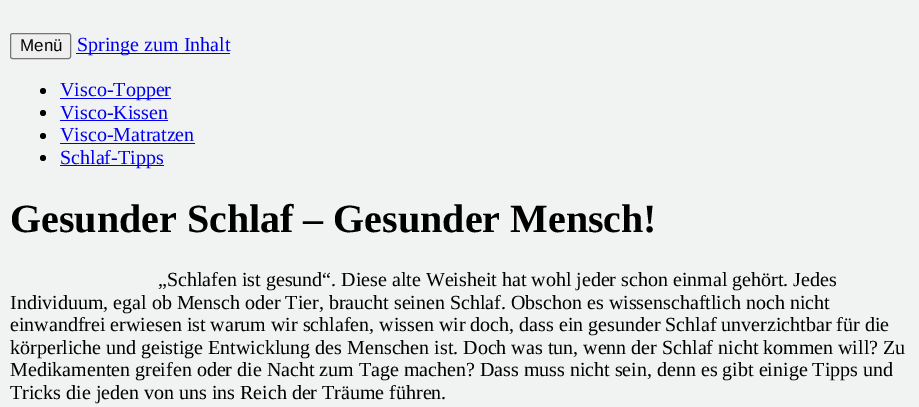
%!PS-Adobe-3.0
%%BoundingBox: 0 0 919 407
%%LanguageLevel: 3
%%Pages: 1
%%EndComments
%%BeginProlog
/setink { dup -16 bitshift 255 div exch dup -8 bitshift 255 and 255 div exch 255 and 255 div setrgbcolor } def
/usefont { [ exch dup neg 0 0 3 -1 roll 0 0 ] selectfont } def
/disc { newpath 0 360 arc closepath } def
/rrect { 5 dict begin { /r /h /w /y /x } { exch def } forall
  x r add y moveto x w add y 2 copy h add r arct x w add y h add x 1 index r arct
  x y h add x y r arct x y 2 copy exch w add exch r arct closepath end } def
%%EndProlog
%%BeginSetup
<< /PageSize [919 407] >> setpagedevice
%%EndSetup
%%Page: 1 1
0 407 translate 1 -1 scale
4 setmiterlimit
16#F1F3F2 setink
0 0 919 407 rectfill
16#EFEFEF setink
10.5 33.5 60 25 2 rrect gsave fill grestore
16#767676 setink
stroke
/LiberationSans-Regular 17 usefont
16#000000 setink
20 51 moveto (Menü) show
16#0000EE setink
76 53 154 1 rectfill
/LiberationSerif-Regular 20 usefont
77 51 moveto (Springe zum Inhalt) show
16#000000 setink
43 91 3 disc fill
16#0000EE setink
60 98 111 1 rectfill
60 96 moveto (Visco-Topper) show
16#000000 setink
43 113 3 disc fill
16#0000EE setink
60 119 moveto (Visco-Kissen) show
60 120 108 1 rectfill
16#000000 setink
43 136 3 disc fill
16#0000EE setink
60 141 moveto (Visco-Matratzen) show
60 143 135 1 rectfill
16#000000 setink
43 158 3 disc fill
16#0000EE setink
60 165 104 1 rectfill
60 164 moveto (Schlaf-Tipps) show
/LiberationSerif-Bold 40 usefont
16#000000 setink
10 232 moveto (Gesunder Schlaf – Gesunder Mensch!) show
/LiberationSerif-Regular 20 usefont
[
    [(„Schlafen ist gesund“. Diese alte Weisheit hat wohl jeder schon einmal gehört. Jedes) 158 286]
    [(Individuum, egal ob Mensch oder Tier, braucht seinen Schlaf. Obschon es wissenschaftlich noch nicht) 10 309]
    [(einwandfrei erwiesen ist warum wir schlafen, wissen wir doch, dass ein gesunder Schlaf unverzichtbar für die) 10 331]
    [(körperliche und geistige Entwicklung des Menschen ist. Doch was tun, wenn der Schlaf nicht kommen will? Zu) 10 354]
    [(Medikamenten greifen oder die Nacht zum Tage machen? Dass muss nicht sein, denn es gibt einige Tipps und) 10 376]
    [(Tricks die jeden von uns ins Reich der Träume führen.) 10 399]
] { aload pop moveto show } forall
showpage
%%EOF
